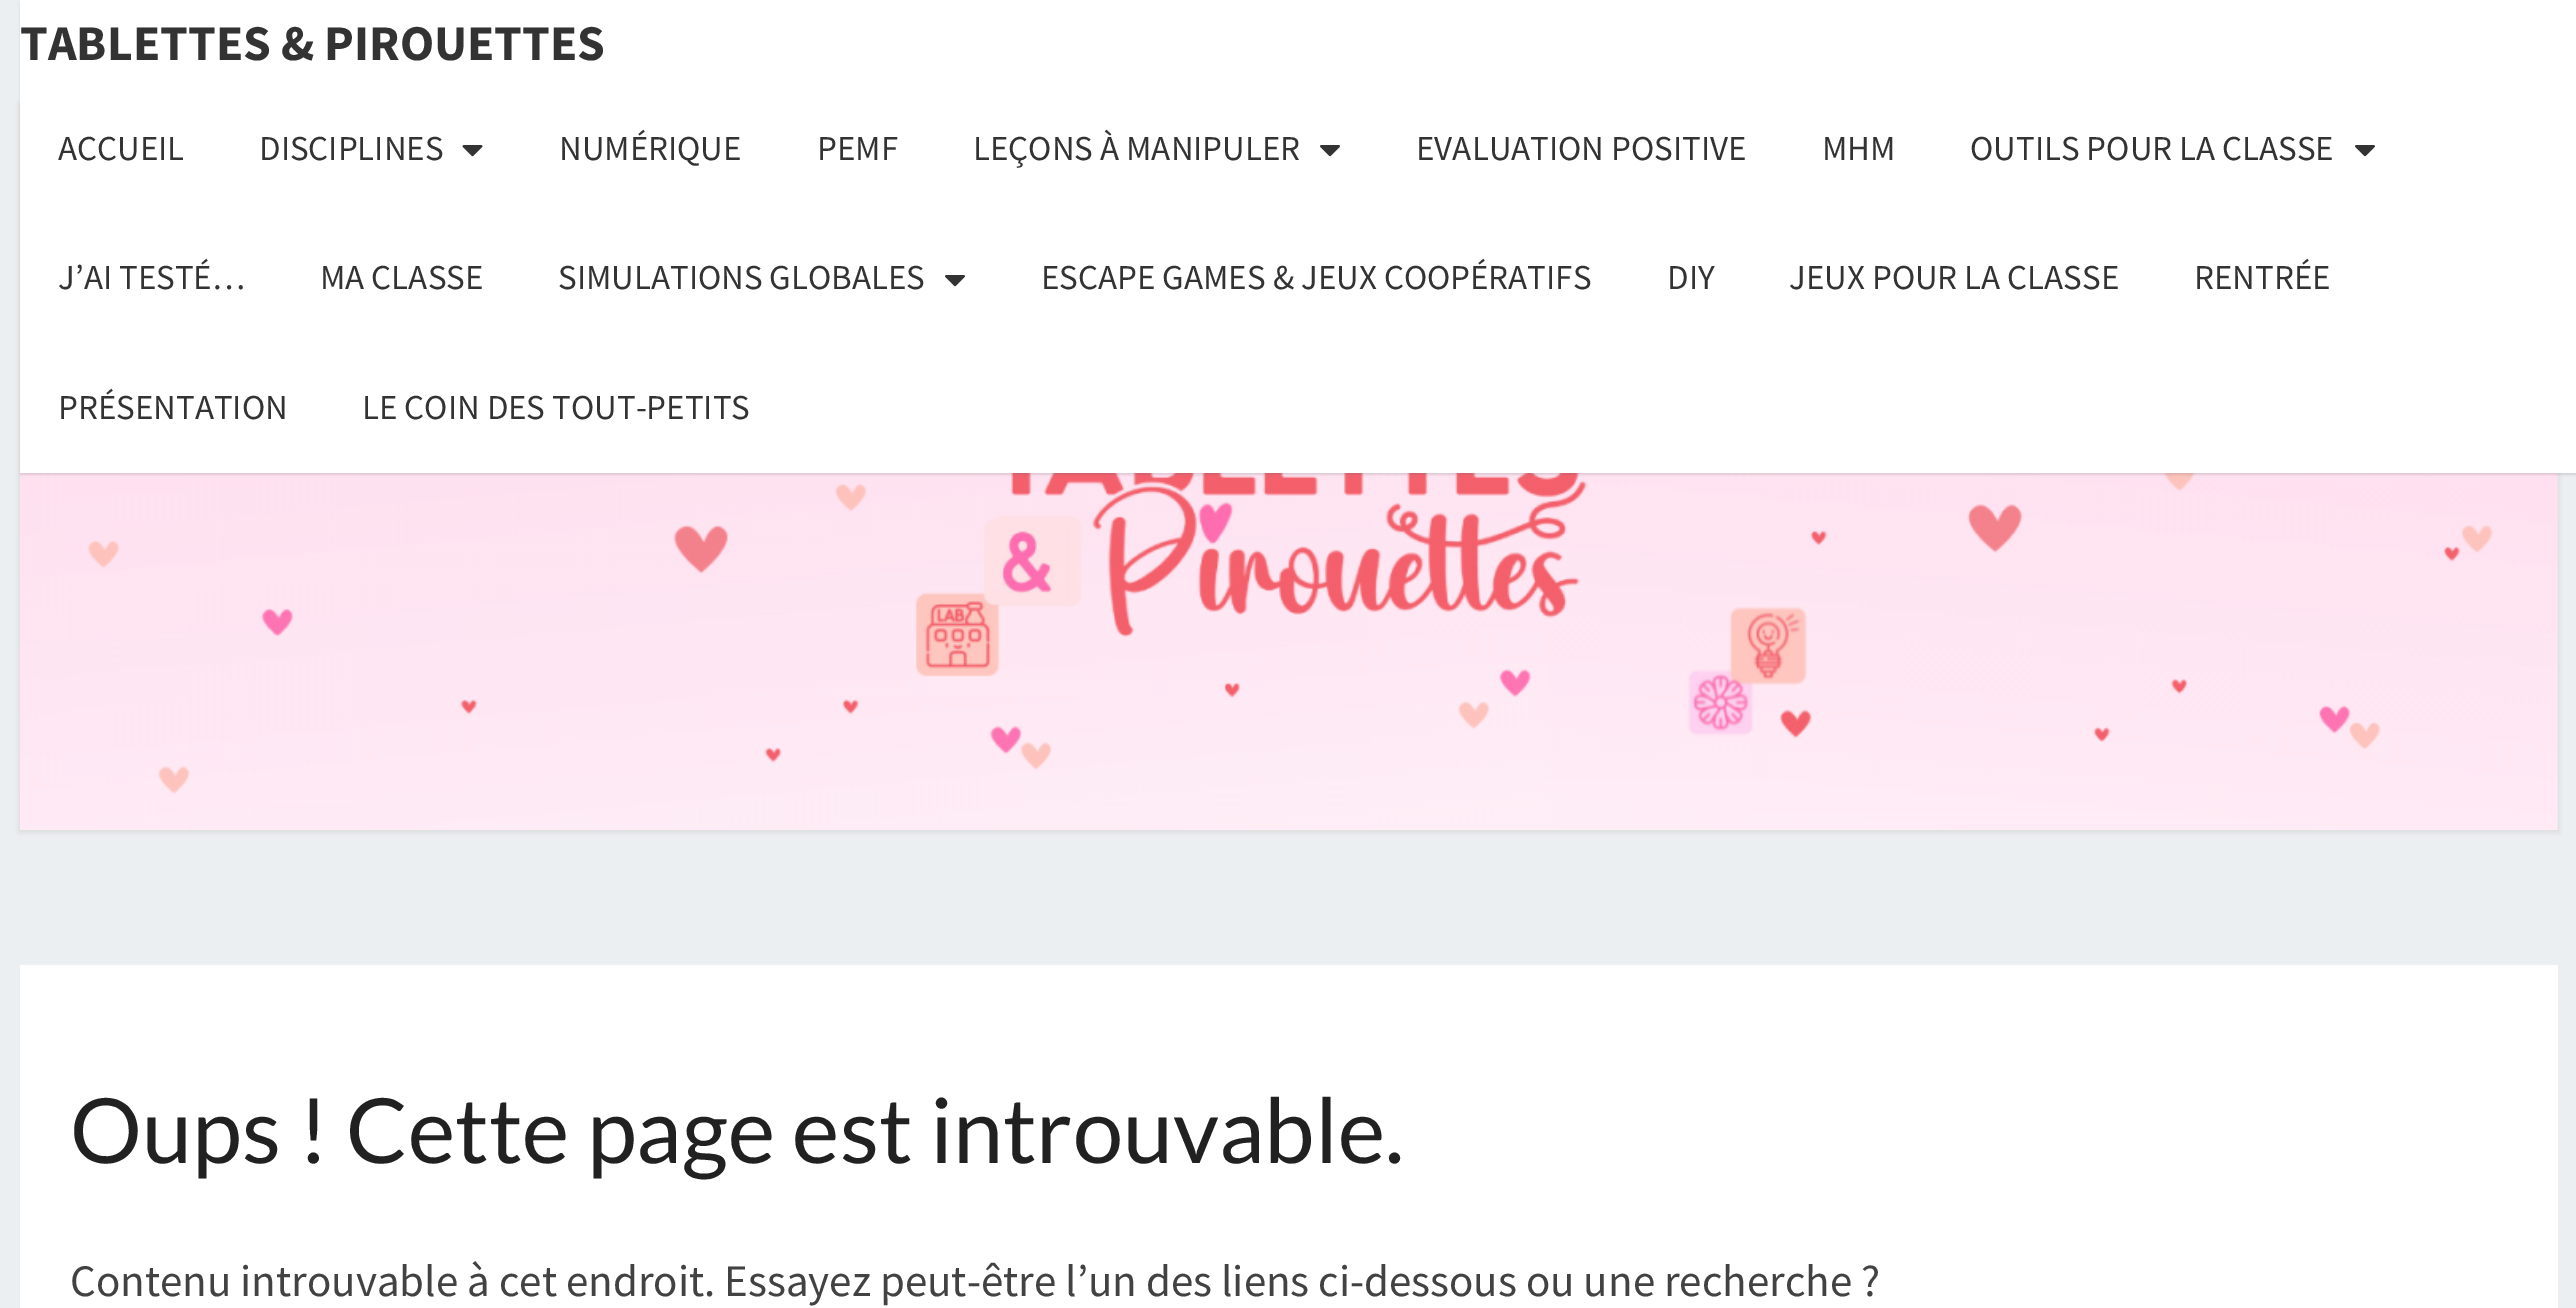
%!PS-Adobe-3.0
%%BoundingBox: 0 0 2576 1308
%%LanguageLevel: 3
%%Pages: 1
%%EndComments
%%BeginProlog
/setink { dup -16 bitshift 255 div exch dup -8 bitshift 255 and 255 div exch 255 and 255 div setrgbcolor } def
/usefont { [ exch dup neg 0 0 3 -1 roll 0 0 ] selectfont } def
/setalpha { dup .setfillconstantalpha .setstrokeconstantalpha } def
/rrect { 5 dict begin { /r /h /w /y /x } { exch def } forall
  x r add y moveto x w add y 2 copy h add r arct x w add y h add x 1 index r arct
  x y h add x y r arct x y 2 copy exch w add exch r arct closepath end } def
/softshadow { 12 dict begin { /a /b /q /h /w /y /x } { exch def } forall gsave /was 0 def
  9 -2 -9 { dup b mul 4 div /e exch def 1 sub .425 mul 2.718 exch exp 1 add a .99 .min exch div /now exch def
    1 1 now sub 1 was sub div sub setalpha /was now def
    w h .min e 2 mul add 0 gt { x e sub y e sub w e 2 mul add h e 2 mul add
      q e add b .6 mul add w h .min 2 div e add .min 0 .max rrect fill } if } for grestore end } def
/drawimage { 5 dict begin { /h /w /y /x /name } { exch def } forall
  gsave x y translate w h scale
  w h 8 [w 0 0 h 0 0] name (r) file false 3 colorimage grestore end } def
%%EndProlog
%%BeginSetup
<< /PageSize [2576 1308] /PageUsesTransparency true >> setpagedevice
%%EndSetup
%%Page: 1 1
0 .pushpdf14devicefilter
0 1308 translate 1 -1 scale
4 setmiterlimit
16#ECEFF1 setink
0 0 2576 1308 rectfill
16#B6B6B6 setink
18 103 2542 730 0 2.5 0.3 softshadow
(img3.raw) 20 473 2538 357 drawimage
16#646464 setink
20 3 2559 472 0 1 0.2 softshadow
16#FFFFFF setink
20 0 2556 473 rectfill
/SourceSansPro-Bold 50 usefont
16#333333 setink
20 60 moveto (TABLETTES & PIROUETTES) show
/SourceSansPro-Regular 35 usefont
58 160 moveto (ACCUEIL) show
259 160 moveto (DISCIPLINES) show
(img1.raw) 462 145 21 12 drawimage
[
    [(NUMÉRIQUE) 559 160]
    [(PEMF) 817 160]
    [(LEÇONS À MANIPULER) 973 160]
] { aload pop moveto show } forall
(img2.raw) 1320 145 20 12 drawimage
[
    [(EVALUATION POSITIVE) 1416 160]
    [(MHM) 1822 160]
    [(OUTILS POUR LA CLASSE) 1970 160]
] { aload pop moveto show } forall
(img2.raw) 2355 145 20 12 drawimage
[
    [(J’AI TESTÉ…) 58 289]
    [(MA CLASSE) 320 289]
    [(SIMULATIONS GLOBALES) 558 289]
] { aload pop moveto show } forall
(img2.raw) 945 275 20 12 drawimage
[
    [(ESCAPE GAMES & JEUX COOPÉRATIFS) 1041 289]
    [(DIY) 1667 289]
    [(JEUX POUR LA CLASSE) 1789 289]
    [(RENTRÉE) 2194 289]
    [(PRÉSENTATION) 58 419]
    [(LE COIN DES TOUT-PETITS) 362 419]
] { aload pop moveto show } forall
16#FFFFFF setink
20 965 2538 343 rectfill
/Lato-Regular 90 usefont
16#212121 setink
70 1163 moveto (Oups ! Cette page est introuvable.) show
/SourceSansPro-Regular 45 usefont
16#424242 setink
70 1296 moveto (Contenu introuvable à cet endroit. Essayez peut-être l’un des liens ci-dessous ou une recherche ?) show
.poppdf14devicefilter showpage
%%EOF
